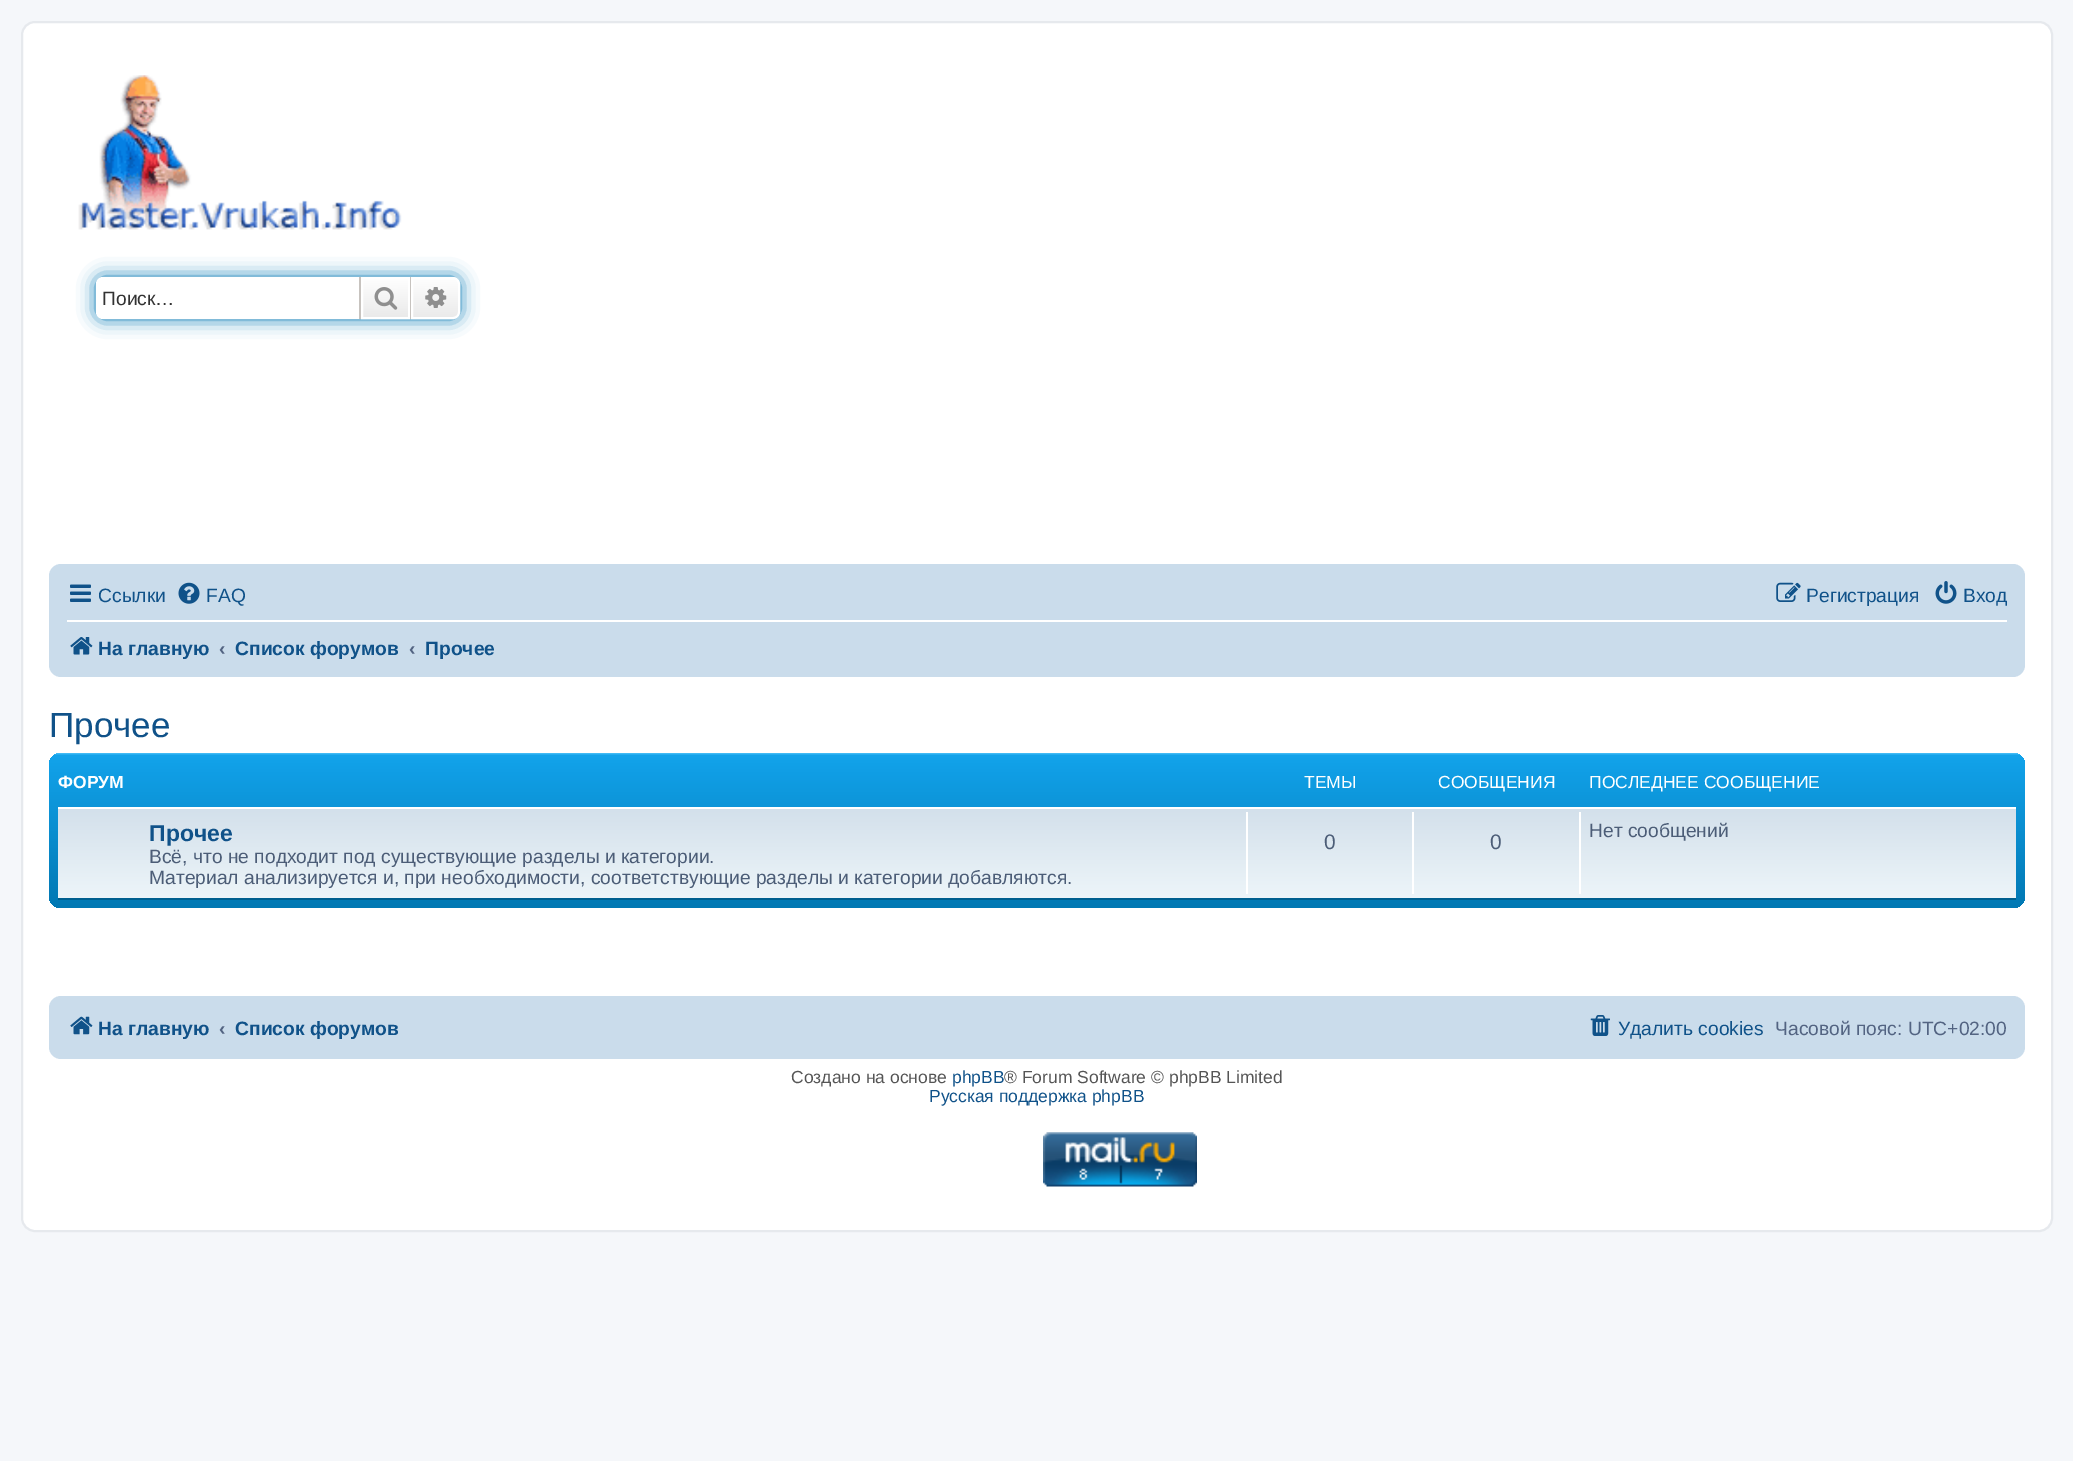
%!PS-Adobe-3.0
%%BoundingBox: 0 0 2073 1461
%%LanguageLevel: 3
%%Pages: 1
%%EndComments
%%BeginProlog
/setink { dup -16 bitshift 255 div exch dup -8 bitshift 255 and 255 div exch 255 and 255 div setrgbcolor } def
/usefont { [ exch dup neg 0 0 3 -1 roll 0 0 ] selectfont } def
/setalpha { dup .setfillconstantalpha .setstrokeconstantalpha } def
/rrect { 5 dict begin { /r /h /w /y /x } { exch def } forall
  x r add y moveto x w add y 2 copy h add r arct x w add y h add x 1 index r arct
  x y h add x y r arct x y 2 copy exch w add exch r arct closepath end } def
/softshadow { 12 dict begin { /a /b /q /h /w /y /x } { exch def } forall gsave /was 0 def
  9 -2 -9 { dup b mul 4 div /e exch def 1 sub .425 mul 2.718 exch exp 1 add a .99 .min exch div /now exch def
    1 1 now sub 1 was sub div sub setalpha /was now def
    w h .min e 2 mul add 0 gt { x e sub y e sub w e 2 mul add h e 2 mul add
      q e add b .6 mul add w h .min 2 div e add .min 0 .max rrect fill } if } for grestore end } def
/drawimage { 5 dict begin { /h /w /y /x /name } { exch def } forall
  gsave x y translate w h scale
  w h 8 [w 0 0 h 0 0] name (r) file false 3 colorimage grestore end } def
%%EndProlog
%%BeginSetup
<< /PageSize [2073 1461] /PageUsesTransparency true >> setpagedevice
%%EndSetup
%%Page: 1 1
0 .pushpdf14devicefilter
0 1461 translate 1 -1 scale
4 setmiterlimit
16#F5F7FA setink
0 0 2073 1461 rectfill
16#FFFFFF setink
22 22 2030 1209 13 rrect gsave fill grestore
16#E6E9ED setink
2 setlinewidth
stroke
(img1.raw) 78 75 324 155 drawimage
16#0075B0 setink
96 277 364 42 7 9 1 softshadow
16#FFFFFF setink
103 277 moveto 359 277 lineto 359 319 lineto 103 319 lineto 99 319 96 316 96 312 curveto 96 284 lineto 96 280 99 277 103 277 curveto closepath fill
/LiberationSans-Regular 19.25 usefont
16#333333 setink
102 305 moveto (Поиск…) show
gsave 363 279 moveto 408 279 lineto 408 317 lineto 363 317 lineto closepath clip newpath
<< /ShadingType 2 /ColorSpace /DeviceRGB /Coords [385 277 385 319] /Extend [true true] /Function << /FunctionType 2 /Domain [0 1] /C0 [1 1 1] /C1 [0.914 0.914 0.914] /N 1 >> >> shfill grestore
16#FFFFFF setink
362 278 47 40 rectstroke
16#C7C3BF setink
410 277 1 42 rectfill
359 277 2 42 rectfill
(img2.raw) 374 287 24 23 drawimage
gsave 412 278 moveto 453 278 lineto 456.5 278 459 280.5 459 284 curveto 459 312 lineto 459 315.5 456.5 318 453 318 curveto 412 318 lineto closepath clip newpath
<< /ShadingType 2 /ColorSpace /DeviceRGB /Coords [436 277 436 319] /Extend [true true] /Function << /FunctionType 2 /Domain [0 1] /C0 [1 1 1] /C1 [0.914 0.914 0.914] /N 1 >> >> shfill grestore
16#FFFFFF setink
412 278 moveto 453 278 lineto 456.5 278 459 280.5 459 284 curveto 459 312 lineto 459 315.5 456.5 318 453 318 curveto 412 318 lineto closepath stroke
(img3.raw) 425 287 22 21 drawimage
16#CADCEB setink
49 564 1976 113 12 rrect fill
(img4.raw) 70 584 21 18 drawimage
16#105289 setink
98 602 moveto (Ссылки) show
(img5.raw) 178 582 22 22 drawimage
206 602 moveto (FAQ) show
(img6.raw) 1776 582 25 20 drawimage
1806 602 moveto (Регистрация) show
(img7.raw) 1935 581 22 23 drawimage
1963 602 moveto (Вход) show
16#FFFFFF setink
67 620 1940 2 rectfill
(img8.raw) 70 637 23 18 drawimage
/LiberationSans-Bold 19.25 usefont
16#105289 setink
98 655 moveto (На главную) show
16#536482 setink
219 655 moveto (‹) show
16#105289 setink
235 655 moveto (Список форумов) show
16#536482 setink
409 655 moveto (‹) show
16#105289 setink
425 655 moveto (Прочее) show
/LiberationSans-Regular 35 usefont
49 737 moveto (Прочее) show
gsave 49 753 1976 155 12 rrect clip newpath
<< /ShadingType 2 /ColorSpace /DeviceRGB /Coords [1037 752 1037 914] /Extend [true true] /Function << /FunctionType 3 /Domain [0 1] /Functions [<< /FunctionType 2 /Domain [0 1] /C0 [0.416 0.808 1] /C1 [0.071 0.639 0.922] /N 1 >> << /FunctionType 2 /Domain [0 1] /C0 [0.071 0.639 0.922] /C1 [0 0.463 0.694] /N 1 >>] /Bounds [0.02] /Encode [0 1 0 1] >> >> shfill grestore
/LiberationSans-Bold 17.5 usefont
16#FFFFFF setink
58 788 moveto (ФОРУМ) show
/LiberationSans-Regular 17.5 usefont
[
    [(ТЕМЫ) 1304 788]
    [(СООБЩЕНИЯ) 1438 788]
    [(ПОСЛЕДНЕЕ СООБЩЕНИЕ) 1589 788]
] { aload pop moveto show } forall
gsave 58 809 moveto 2016 809 lineto 2016 898 lineto 58 898 lineto closepath clip newpath
<< /ShadingType 2 /ColorSpace /DeviceRGB /Coords [1037 807 1037 900] /Extend [true true] /Function << /FunctionType 2 /Domain [0 1] /C0 [0.824 0.878 0.922] /C1 [0.933 0.961 0.976] /N 1 >> >> shfill grestore
58 807 1958 2 rectfill
16#00608F setink
58 898 1958 2 rectfill
/LiberationSans-Bold 23 usefont
16#105289 setink
149 841 moveto (Прочее) show
/LiberationSans-Regular 19.25 usefont
16#4C5D77 setink
149 863 moveto (Всё, что не подходит под существующие разделы и категории.) show
149 884 moveto (Материал анализируется и, при необходимости, соответствующие разделы и категории добавляются.) show
16#FFFFFF setink
1246 812 2 82 rectfill
/LiberationSans-Regular 21 usefont
16#4C5D77 setink
1324 849 moveto (0) show
16#FFFFFF setink
1412 812 2 82 rectfill
16#4C5D77 setink
1490 849 moveto (0) show
16#FFFFFF setink
1579 812 2 82 rectfill
/LiberationSans-Regular 19.25 usefont
16#4C5D77 setink
1589 837 moveto (Нет сообщений) show
16#CADCEB setink
49 996 1976 63 12 rrect fill
(img9.raw) 70 1016 23 19 drawimage
/LiberationSans-Bold 19.25 usefont
16#105289 setink
98 1035 moveto (На главную) show
16#536482 setink
219 1035 moveto (‹) show
16#105289 setink
235 1035 moveto (Список форумов) show
(img10.raw) 1590 1015 20 21 drawimage
/LiberationSans-Regular 19.25 usefont
1618 1035 moveto (Удалить cookies) show
16#536482 setink
1775 1035 moveto (Часовой пояс: UTC+02:00) show
/LiberationSans-Regular 17.5 usefont
16#555555 setink
791 1083 moveto (Создано на основе) show
16#105289 setink
952 1083 moveto (phpBB) show
16#555555 setink
1004 1083 moveto (® Forum Software © phpBB Limited) show
16#105289 setink
929 1102 moveto (Русская поддержка phpBB) show
(img11.raw) 1043 1132 154 55 drawimage
.poppdf14devicefilter showpage
%%EOF
